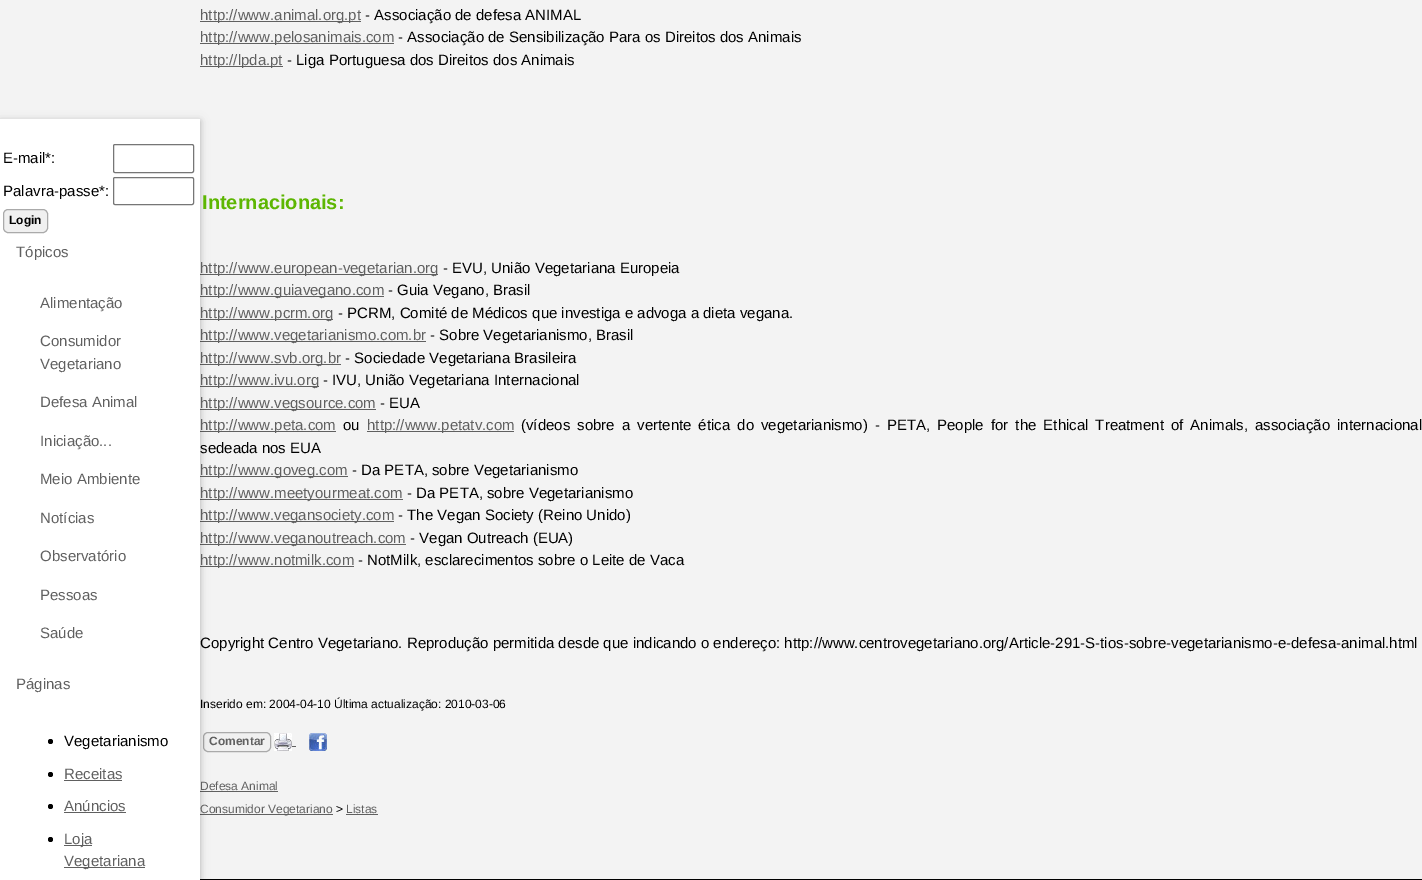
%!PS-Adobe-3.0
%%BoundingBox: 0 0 1422 880
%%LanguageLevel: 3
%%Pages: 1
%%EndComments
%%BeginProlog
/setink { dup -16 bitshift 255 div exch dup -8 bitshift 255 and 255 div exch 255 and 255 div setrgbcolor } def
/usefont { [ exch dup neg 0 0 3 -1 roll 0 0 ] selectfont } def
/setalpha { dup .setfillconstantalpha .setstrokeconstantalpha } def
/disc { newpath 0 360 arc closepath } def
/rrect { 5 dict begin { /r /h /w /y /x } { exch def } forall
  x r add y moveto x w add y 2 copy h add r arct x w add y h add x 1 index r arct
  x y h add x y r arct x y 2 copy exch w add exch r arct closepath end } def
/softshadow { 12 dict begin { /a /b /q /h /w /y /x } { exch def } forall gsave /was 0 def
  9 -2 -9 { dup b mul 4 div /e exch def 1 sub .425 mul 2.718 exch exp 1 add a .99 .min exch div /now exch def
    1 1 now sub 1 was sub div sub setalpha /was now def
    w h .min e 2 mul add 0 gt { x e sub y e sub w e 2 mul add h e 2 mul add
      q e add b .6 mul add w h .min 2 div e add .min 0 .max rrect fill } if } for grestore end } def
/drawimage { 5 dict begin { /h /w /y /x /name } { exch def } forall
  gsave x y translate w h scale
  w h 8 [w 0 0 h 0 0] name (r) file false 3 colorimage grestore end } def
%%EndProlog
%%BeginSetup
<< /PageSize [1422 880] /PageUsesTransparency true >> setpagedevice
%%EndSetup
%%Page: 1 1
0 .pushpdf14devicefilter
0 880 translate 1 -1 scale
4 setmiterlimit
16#F3F3F3 setink
0 0 1422 880 rectfill
[
    [200 274 238 1 16#606060]
    [200 296 184 1 16#606060]
    [200 319 133 1 16#606060]
    [200 341 226 1 16#606060]
    [200 364 141 1 16#606060]
    [200 386 119 1 16#606060]
    [200 409 176 1 16#606060]
    [200 431 136 1 16#606060]
    [200 476 148 1 16#606060]
    [200 499 203 1 16#606060]
    [200 521 194 1 16#606060]
    [200 544 206 1 16#606060]
    [200 566 154 1 16#606060]
] { aload pop setink rectfill } forall
16#F0F0F0 setink
203.5 732.5 67 19 4.5 rrect gsave fill grestore
16#AAAAAA setink
stroke
[
    [200 791 78 1 16#606060]
    [200 814 133 1 16#606060]
    [200 879 1222 1 16#000000]
] { aload pop setink rectfill } forall
0 121 200 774 0 5 0.12 softshadow
0 121 200 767 0 2.5 0.16 softshadow
16#FFFFFF setink
0 119 200 761 rectfill
/LiberationSans-Regular 15 usefont
16#000000 setink
3 163 moveto (E-mail*:) show
16#767676 setink
113.5 144.5 80 28 1.5 rrect stroke
16#000000 setink
3 196 moveto (Palavra-passe*:) show
16#767676 setink
113.5 177.5 80 27 1.5 rrect stroke
16#F0F0F0 setink
3.5 209.5 44 23 4.5 rrect gsave fill grestore
16#AAAAAA setink
stroke
/LiberationSans-Bold 12 usefont
16#000000 setink
9 224 moveto (Login) show
/LiberationSans-Regular 15 usefont
16#606060 setink
[
    [(Tópicos) 16 257]
    [(Alimentação) 40 308]
    [(Consumidor) 40 346]
    [(Vegetariano) 40 369]
    [(Defesa Animal) 40 407]
    [(Iniciação...) 40 446]
    [(Meio Ambiente) 40 484]
    [(Notícias) 40 523]
    [(Observatório) 40 561]
    [(Pessoas) 40 600]
    [(Saúde) 40 638]
    [(Páginas) 16 689]
] { aload pop moveto show } forall
16#000000 setink
50.5 741.5 2.5 disc fill
64 746 moveto (Vegetarianismo) show
50.5 774.5 2.5 disc fill
16#606060 setink
64 779 moveto (Receitas) show
64 780 58 1 rectfill
16#000000 setink
50.5 806.5 2.5 disc fill
16#606060 setink
64 811 moveto (Anúncios) show
64 812 62 1 rectfill
16#000000 setink
50.5 839.5 2.5 disc fill
16#606060 setink
64 845 28 1 rectfill
64 844 moveto (Loja) show
64 867 81 1 rectfill
64 866 moveto (Vegetariana) show
200 21 161 1 rectfill
200 20 moveto (http://www.animal.org.pt) show
16#000000 setink
365 20 moveto (- Associação de defesa ANIMAL) show
16#606060 setink
200 43 194 1 rectfill
200 42 moveto (http://www.pelosanimais.com) show
16#000000 setink
398 42 moveto (- Associação de Sensibilização Para os Direitos dos Animais) show
16#606060 setink
200 66 83 1 rectfill
200 65 moveto (http://lpda.pt) show
16#000000 setink
287 65 moveto (- Liga Portuguesa dos Direitos dos Animais) show
/LiberationSans-Bold 20 usefont
16#5DB602 setink
202 209 moveto (Internacionais:) show
/LiberationSans-Regular 15 usefont
16#606060 setink
200 273 moveto (http://www.european-vegetarian.org) show
16#000000 setink
443 273 moveto (- EVU, União Vegetariana Europeia) show
16#606060 setink
200 295 moveto (http://www.guiavegano.com) show
16#000000 setink
388 295 moveto (- Guia Vegano, Brasil) show
16#606060 setink
200 318 moveto (http://www.pcrm.org) show
16#000000 setink
338 318 moveto (- PCRM, Comité de Médicos que investiga e advoga a dieta vegana.) show
16#606060 setink
200 340 moveto (http://www.vegetarianismo.com.br) show
16#000000 setink
430 340 moveto (- Sobre Vegetarianismo, Brasil) show
16#606060 setink
200 363 moveto (http://www.svb.org.br) show
16#000000 setink
345 363 moveto (- Sociedade Vegetariana Brasileira) show
16#606060 setink
200 385 moveto (http://www.ivu.org) show
16#000000 setink
323 385 moveto (- IVU, União Vegetariana Internacional) show
16#606060 setink
200 408 moveto (http://www.vegsource.com) show
16#000000 setink
380 408 moveto (- EUA) show
16#606060 setink
200 430 moveto (http://www.peta.com) show
16#000000 setink
343 430 moveto (ou) show
16#606060 setink
367 431 147 1 rectfill
367 430 moveto (http://www.petatv.com) show
16#000000 setink
521 430 moveto 2.9 0 32 (\(vídeos sobre a vertente ética do vegetarianismo\) - PETA, People for the Ethical Treatment of Animals, associação internacional) widthshow
200 453 moveto (sedeada nos EUA) show
16#606060 setink
200 475 moveto (http://www.goveg.com) show
16#000000 setink
352 475 moveto (- Da PETA, sobre Vegetarianismo) show
16#606060 setink
200 498 moveto (http://www.meetyourmeat.com) show
16#000000 setink
407 498 moveto (- Da PETA, sobre Vegetarianismo) show
16#606060 setink
200 520 moveto (http://www.vegansociety.com) show
16#000000 setink
398 520 moveto (- The Vegan Society \(Reino Unido\)) show
16#606060 setink
200 543 moveto (http://www.veganoutreach.com) show
16#000000 setink
410 543 moveto (- Vegan Outreach \(EUA\)) show
16#606060 setink
200 565 moveto (http://www.notmilk.com) show
16#000000 setink
358 565 moveto (- NotMilk, esclarecimentos sobre o Leite de Vaca) show
200 648 moveto (Copyright Centro Vegetariano. Reprodução permitida desde que indicando o endereço: http://www.centrovegetariano.org/Article-291-S-tios-sobre-vegetarianismo-e-defesa-animal.html) show
/LiberationSans-Regular 12 usefont
200 708 moveto (Inserido em: 2004-04-10 Última actualização: 2010-03-06) show
/LiberationSans-Bold 12 usefont
16#606060 setink
209 745 moveto (Comentar) show
292 746 4 1 rectfill
(img1.raw) 274 733 18 18 drawimage
(img2.raw) 309 733 18 18 drawimage
/LiberationSans-Regular 12 usefont
200 790 moveto (Defesa Animal) show
200 813 moveto (Consumidor Vegetariano) show
16#000000 setink
336 813 moveto (>) show
16#606060 setink
346 813 moveto (Listas) show
346 814 32 1 rectfill
.poppdf14devicefilter showpage
%%EOF
